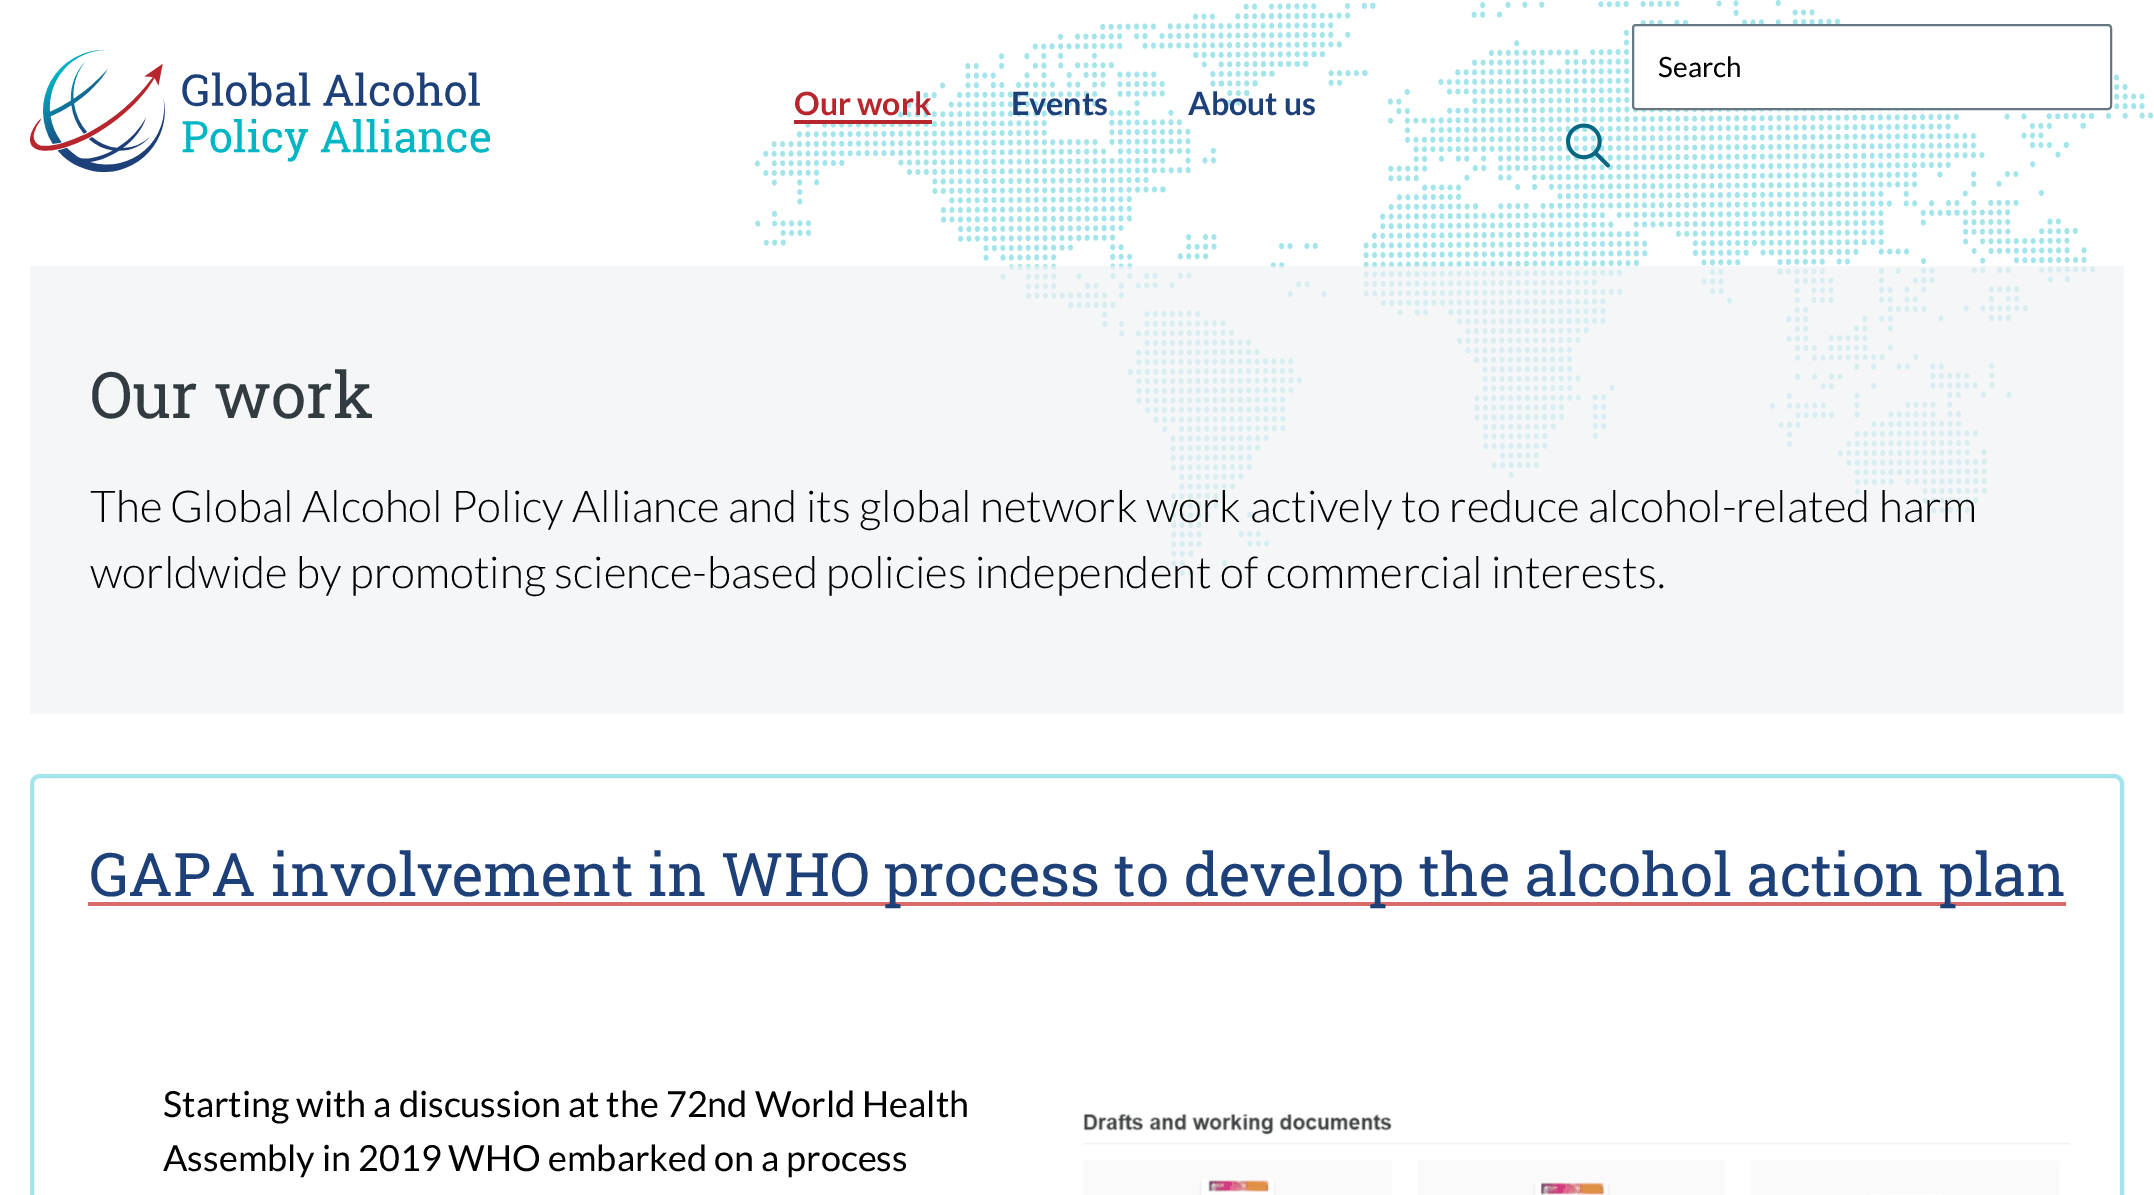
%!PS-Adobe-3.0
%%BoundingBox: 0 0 2154 1195
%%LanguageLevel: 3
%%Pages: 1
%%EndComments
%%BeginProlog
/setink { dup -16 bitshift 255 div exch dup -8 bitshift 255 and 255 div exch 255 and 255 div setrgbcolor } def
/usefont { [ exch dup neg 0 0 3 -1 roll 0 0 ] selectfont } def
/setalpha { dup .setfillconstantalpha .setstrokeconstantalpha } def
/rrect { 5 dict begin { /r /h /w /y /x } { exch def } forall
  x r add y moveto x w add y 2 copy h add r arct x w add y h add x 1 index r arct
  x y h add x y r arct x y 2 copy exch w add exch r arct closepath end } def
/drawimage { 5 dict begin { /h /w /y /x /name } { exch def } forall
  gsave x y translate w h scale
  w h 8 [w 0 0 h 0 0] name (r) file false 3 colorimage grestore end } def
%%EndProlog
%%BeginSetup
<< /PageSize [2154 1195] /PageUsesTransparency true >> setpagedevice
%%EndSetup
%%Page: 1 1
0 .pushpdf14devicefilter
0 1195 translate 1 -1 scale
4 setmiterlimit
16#FFFFFF setink
0 0 2154 1195 rectfill
(img1.raw) 754 0 1400 576 drawimage
(img2.raw) 30 50 460 122 drawimage
1633 25 478 84 3 rrect gsave fill grestore
16#667882 setink
2 setlinewidth
stroke
/Lato-Regular 28 usefont
16#000000 setink
1658 77 moveto (Search) show
(img3.raw) 1566 123 44 45 drawimage
/Lato-Bold 32 usefont
16#B7262C setink
794 115 moveto (Our work) show
794 120 138 4 rectfill
16#1E4079 setink
1011 115 moveto (Events) show
1188 115 moveto (About us) show
0.7 setalpha
16#F0F2F3 setink
30 266 2094 448 rectfill
/RobotoSlab-Regular 64 usefont
1 setalpha
16#323B40 setink
90 418 moveto (Our work) show
/Lato-Light 44 usefont
16#000000 setink
90 522 moveto (The Global Alcohol Policy Alliance and its global network work actively to reduce alcohol-related harm) show
90 588 moveto (worldwide by promoting science-based policies independent of commercial interests.) show
16#A4E5EC setink
4 setlinewidth
32 776 2090 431 8 rrect stroke
16#D96B6A setink
88 902 1978 4 rectfill
/RobotoSlab-Regular 60 usefont
16#1E4079 setink
89 896 moveto (GAPA involvement in WHO process to develop the alcohol action plan) show
/Lato-Regular 36 usefont
16#000000 setink
163 1117 moveto (Starting with a discussion at the 72nd World Health) show
163 1171 moveto (Assembly in 2019 WHO embarked on a process) show
(img4.raw) 1083 1113 987 82 drawimage
.poppdf14devicefilter showpage
%%EOF
